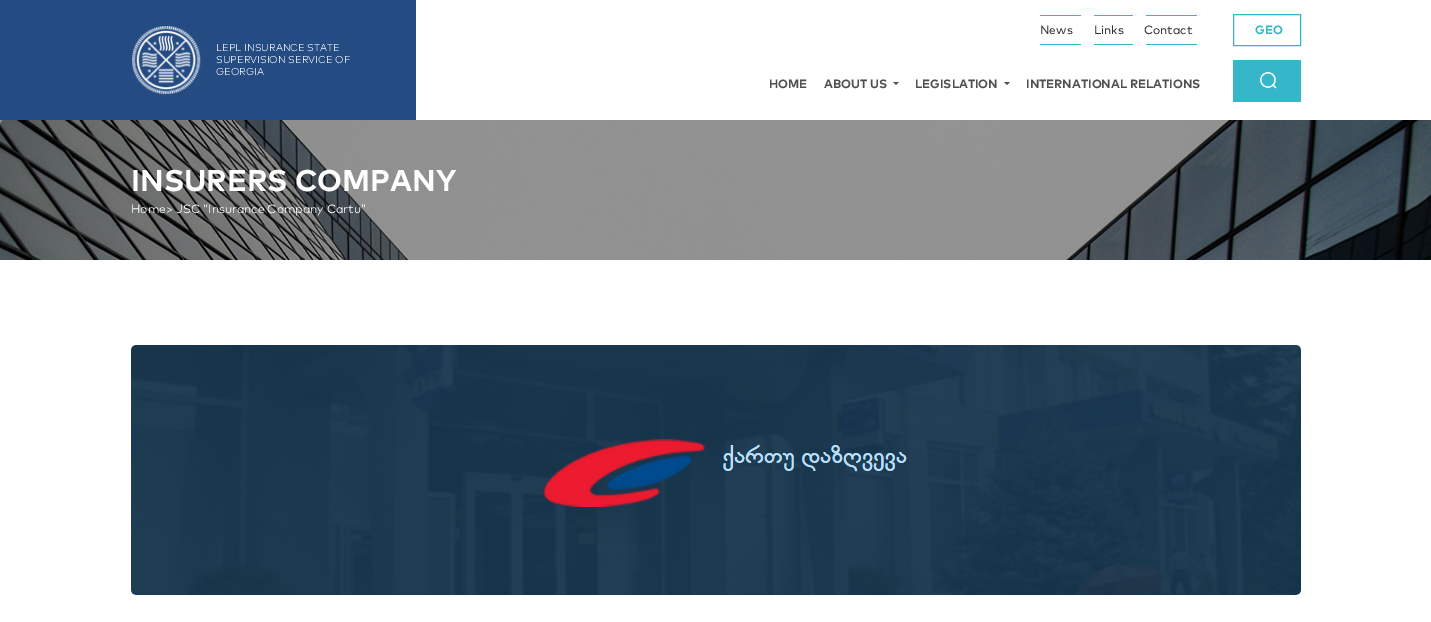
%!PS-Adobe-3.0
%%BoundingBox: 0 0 1431 622
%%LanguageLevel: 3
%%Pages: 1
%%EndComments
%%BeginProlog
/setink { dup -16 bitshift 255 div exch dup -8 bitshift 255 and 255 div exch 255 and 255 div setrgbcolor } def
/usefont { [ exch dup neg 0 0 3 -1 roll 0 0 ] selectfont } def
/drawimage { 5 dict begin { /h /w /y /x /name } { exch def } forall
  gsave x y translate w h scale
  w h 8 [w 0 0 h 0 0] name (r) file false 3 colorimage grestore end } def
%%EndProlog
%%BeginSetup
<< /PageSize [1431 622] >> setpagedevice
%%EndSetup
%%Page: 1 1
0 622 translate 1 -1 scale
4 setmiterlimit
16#FFFFFF setink
0 0 1431 622 rectfill
16#244B82 setink
0 0 416 120 rectfill
(img1.raw) 132 26 69 69 drawimage
/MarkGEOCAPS-Light 10 usefont
16#FFFFFF setink
[
    [(LEPL INSURANCE STATE) 216 51]
    [(SUPERVISION SERVICE OF) 216 63]
    [(GEORGIA) 216 75]
] { aload pop moveto show } forall
16#36B6C9 setink
1040 15 41 1 rectfill
/MarkGEOCAPS-Medium 12 usefont
16#333333 setink
1040 34 moveto (News) show
16#36B6C9 setink
1040 44 41 1 rectfill
1094 15 39 1 rectfill
16#333333 setink
1094 34 moveto (Links) show
16#36B6C9 setink
1094 44 39 1 rectfill
1146 15 51 1 rectfill
16#333333 setink
1144 34 moveto (Contact) show
16#36B6C9 setink
1146 44 51 1 rectfill
1233.5 14.5 67 31 rectstroke
/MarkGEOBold-Bold 12 usefont
1255 34 moveto (GEO) show
/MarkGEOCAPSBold-Bold 12 usefont
16#515050 setink
769 88 moveto (HOME) show
824 88 moveto (ABOUT US) show
893 82 moveto 899 82 lineto 896 85 lineto closepath fill
915 88 moveto (LEGISLATION) show
1004 82 moveto 1010 82 lineto 1007 85 lineto closepath fill
1026 88 moveto (INTERNATIONAL RELATIONS) show
16#36B6C9 setink
1233 60 68 42 rectfill
(img2.raw) 1260 72 17 17 drawimage
(img3.raw) 0 120 1431 140 drawimage
/MarkGEOCAPSBold-Bold 30 usefont
16#FFFFFF setink
131 191 moveto (INSURERS COMPANY) show
/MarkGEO-Regular 12 usefont
131 213 moveto (Home> JSC “Insurance Company Cartu”) show
(img4.raw) 131 345 1170 250 drawimage
showpage
%%EOF
